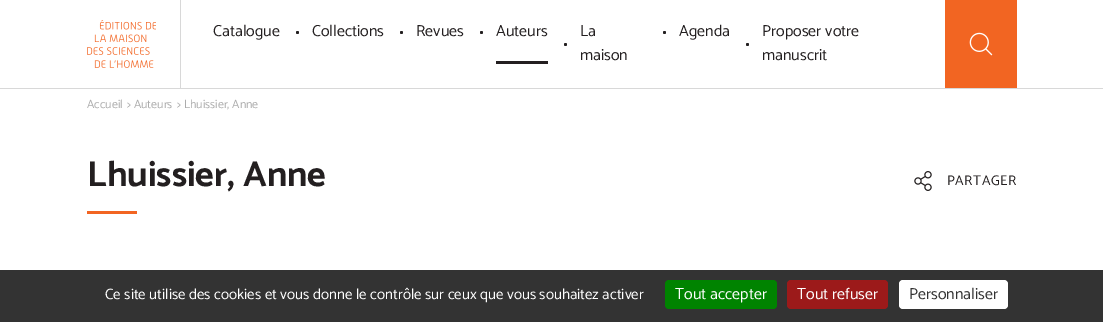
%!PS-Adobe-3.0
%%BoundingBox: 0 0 1103 322
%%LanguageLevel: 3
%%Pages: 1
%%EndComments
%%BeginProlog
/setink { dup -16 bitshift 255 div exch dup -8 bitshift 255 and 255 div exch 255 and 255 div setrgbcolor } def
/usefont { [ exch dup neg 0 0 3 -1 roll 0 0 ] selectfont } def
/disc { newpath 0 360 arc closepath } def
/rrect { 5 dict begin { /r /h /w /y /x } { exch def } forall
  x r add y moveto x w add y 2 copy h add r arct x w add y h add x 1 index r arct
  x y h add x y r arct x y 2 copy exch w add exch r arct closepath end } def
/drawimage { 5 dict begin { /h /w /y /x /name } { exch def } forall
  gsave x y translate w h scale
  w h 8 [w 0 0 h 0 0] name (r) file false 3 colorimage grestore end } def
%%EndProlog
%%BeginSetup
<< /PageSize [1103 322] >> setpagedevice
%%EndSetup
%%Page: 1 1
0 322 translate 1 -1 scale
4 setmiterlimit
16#FFFFFF setink
0 0 1103 322 rectfill
16#D8D8D8 setink
0 88 1103 1 rectfill
180 0 1 88 rectfill
(img1.raw) 87 20 69 48 drawimage
/Catamaran-Thin 16 usefont
16#231F20 setink
213 36 moveto (Catalogue) show
297.5 32.5 1.5 disc fill
312 36 moveto (Collections) show
401.5 32.5 1.5 disc fill
416 36 moveto (Revues) show
481.5 32.5 1.5 disc fill
496 36 moveto (Auteurs) show
496 61 52 3 rectfill
580 36 moveto (La) show
565.5 44.5 1.5 disc fill
580 60 moveto (maison) show
664.5 32.5 1.5 disc fill
679 36 moveto (Agenda) show
762 36 moveto (Proposer votre) show
747.5 44.5 1.5 disc fill
762 60 moveto (manuscrit) show
16#F26522 setink
945 0 72 88 rectfill
(img2.raw) 969 32 24 24 drawimage
/Catamaran-Thin 12 usefont
16#ACACAC setink
[
    [(Accueil) 87 108]
    [(> Auteurs) 127 108]
    [(> Lhuissier, Anne) 177 108]
] { aload pop moveto show } forall
/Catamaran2-Thin 36 usefont
16#231F20 setink
87 186 moveto (Lhuissier, Anne) show
16#F26522 setink
87 211 50 3 rectfill
(img3.raw) 914 171 18 20 drawimage
/Catamaran-Thin 14 usefont
16#231F20 setink
947 185 moveto 0.5 0 (PARTAGER) ashow
16#333333 setink
0 270 1103 52 rectfill
/Catamaran-Thin 15 usefont
16#FFFFFF setink
105 299 moveto (Ce site utilise des cookies et vous donne le contrôle sur ceux que vous souhaitez activer) show
16#008300 setink
665 280 112 29 4 rrect fill
/Catamaran-Thin 16 usefont
16#FFFFFF setink
675 299 moveto (Tout accepter) show
16#9C1A1A setink
787 280 101 29 4 rrect fill
16#FFFFFF setink
797 299 moveto (Tout refuser) show
899 280 109 29 4 rrect fill
16#333333 setink
909 299 moveto (Personnaliser) show
showpage
%%EOF
